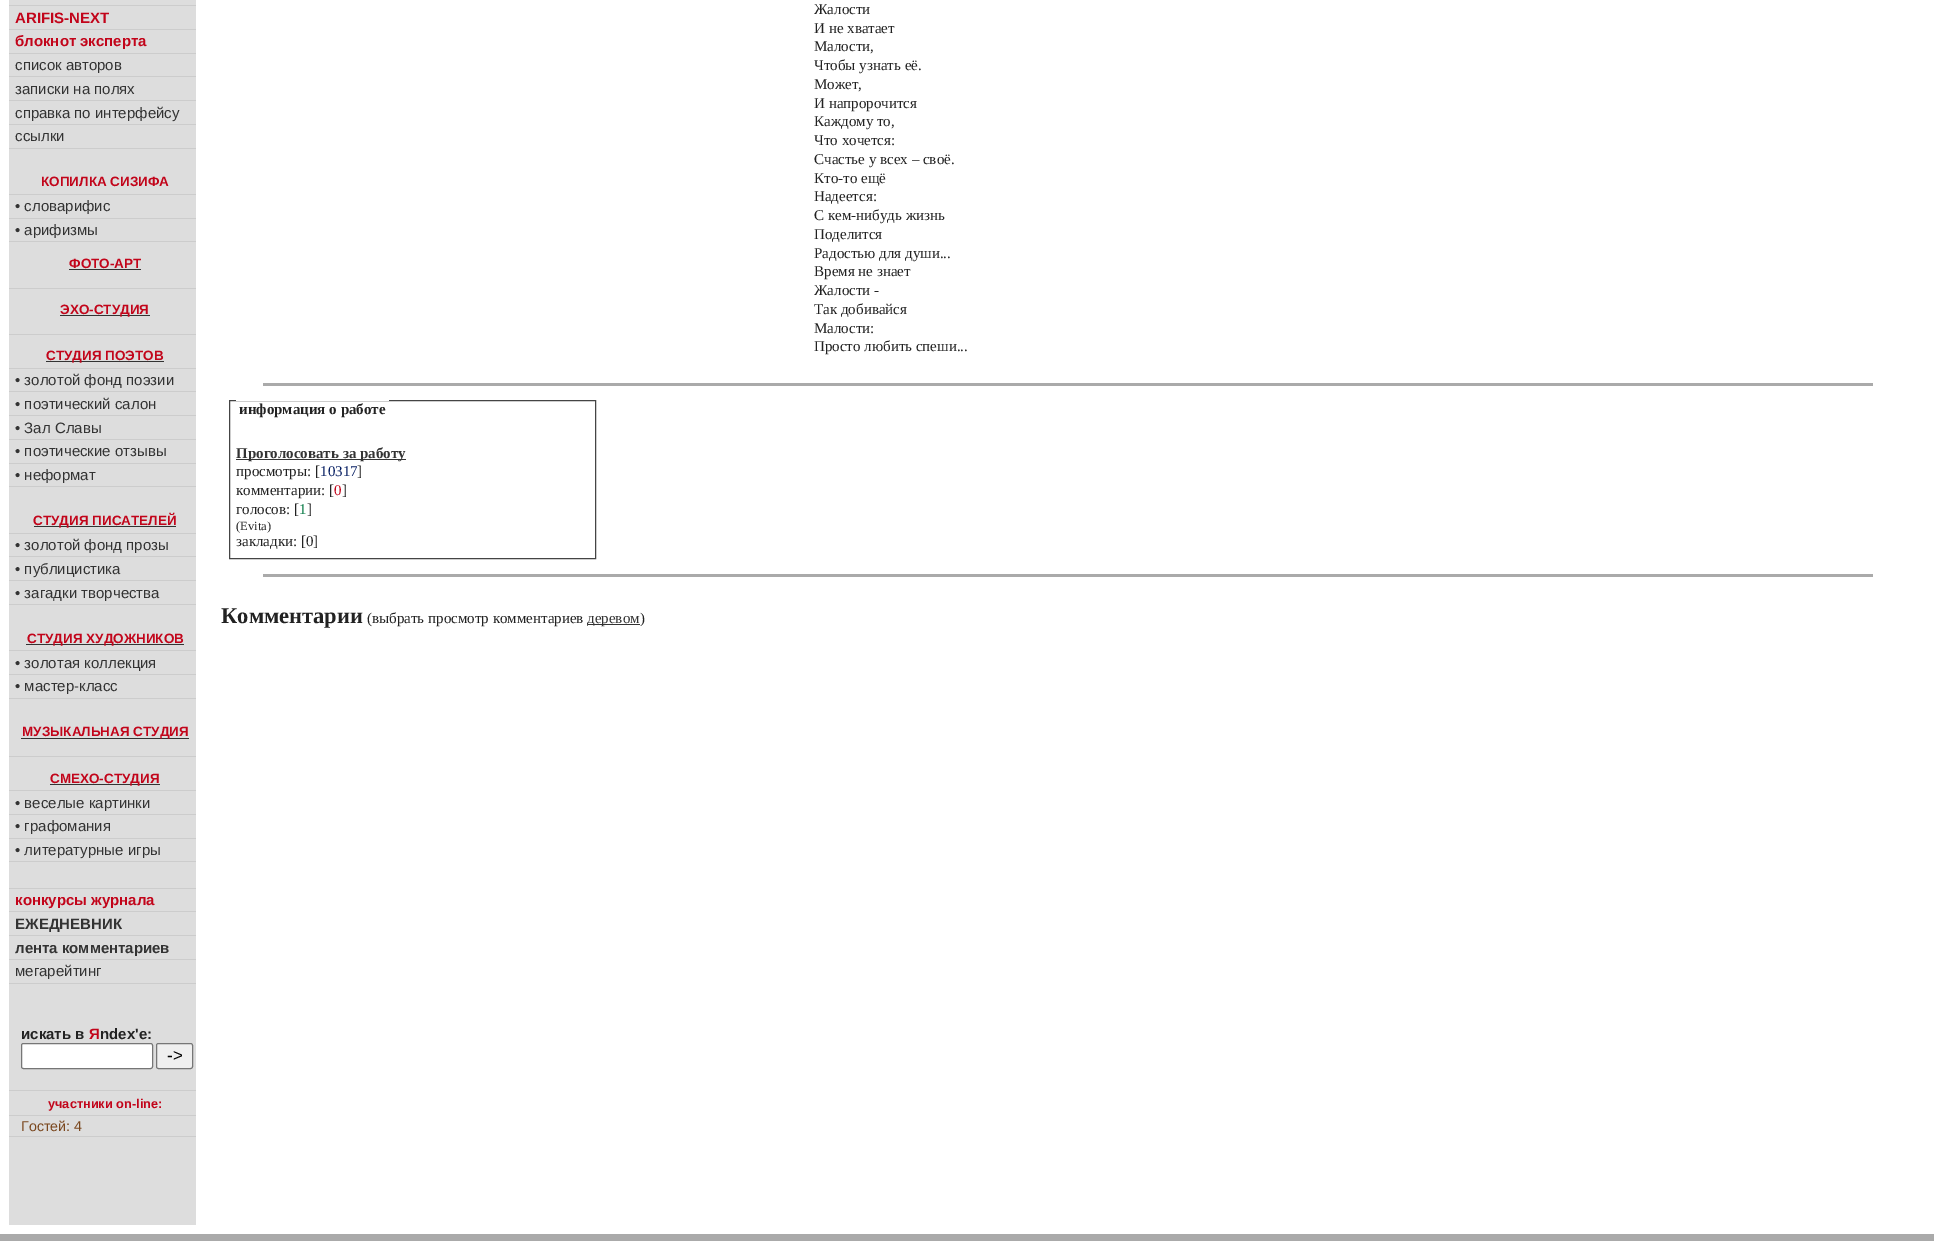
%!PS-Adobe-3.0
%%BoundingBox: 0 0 1934 1245
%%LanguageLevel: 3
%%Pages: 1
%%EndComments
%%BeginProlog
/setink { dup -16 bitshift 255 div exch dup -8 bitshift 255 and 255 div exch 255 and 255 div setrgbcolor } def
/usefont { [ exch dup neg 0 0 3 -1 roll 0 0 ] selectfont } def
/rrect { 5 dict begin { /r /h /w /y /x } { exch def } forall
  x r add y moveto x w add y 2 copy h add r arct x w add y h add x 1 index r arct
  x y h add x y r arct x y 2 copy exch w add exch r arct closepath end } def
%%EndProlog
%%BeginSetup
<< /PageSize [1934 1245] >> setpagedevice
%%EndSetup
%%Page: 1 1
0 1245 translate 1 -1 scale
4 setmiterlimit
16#FFFFFF setink
0 0 1934 1245 rectfill
[
    [9 0 187 1225 16#DDDDDD]
    [9 148 187 1 16#CCCCCC]
    [9 5 187 1 16#CCCCCC]
] { aload pop setink rectfill } forall
/LiberationSans-Bold 15 usefont
16#C2041A setink
15 23 moveto (ARIFIS-NEXT) show
16#CCCCCC setink
9 29 187 1 rectfill
16#C2041A setink
15 46 moveto (блокнот эксперта) show
16#CCCCCC setink
9 53 187 1 rectfill
/LiberationSans-Regular 15 usefont
16#333333 setink
15 70 moveto (список авторов) show
16#CCCCCC setink
9 76 187 1 rectfill
16#333333 setink
15 94 moveto (записки на полях) show
16#CCCCCC setink
9 100 187 1 rectfill
16#333333 setink
15 118 moveto (справка по интерфейсу) show
16#CCCCCC setink
9 124 187 1 rectfill
16#333333 setink
15 141 moveto (ссылки) show
/LiberationSans-Bold 13.5 usefont
16#C2041A setink
41 186 moveto (КОПИЛКА СИЗИФА) show
16#CCCCCC setink
9 241 187 1 rectfill
9 194 187 1 rectfill
/LiberationSans-Regular 15 usefont
16#333333 setink
15 211 moveto (• словарифис) show
16#CCCCCC setink
9 218 187 1 rectfill
16#333333 setink
15 235 moveto (• арифизмы) show
/LiberationSans-Bold 13.5 usefont
16#C2041A setink
69 268 moveto (ФОТО-АРТ) show
[
    [69 269 72 1 16#333333]
    [9 288 187 1 16#CCCCCC]
    [60 315 90 1 16#333333]
] { aload pop setink rectfill } forall
16#C2041A setink
60 314 moveto (ЭХО-СТУДИЯ) show
16#CCCCCC setink
9 334 187 1 rectfill
16#333333 setink
46 361 118 1 rectfill
16#C2041A setink
46 360 moveto (СТУДИЯ ПОЭТОВ) show
16#CCCCCC setink
9 486 187 1 rectfill
9 368 187 1 rectfill
/LiberationSans-Regular 15 usefont
16#333333 setink
15 385 moveto (• золотой фонд поэзии) show
16#CCCCCC setink
9 391 187 1 rectfill
16#333333 setink
15 409 moveto (• поэтический салон) show
16#CCCCCC setink
9 415 187 1 rectfill
16#333333 setink
15 433 moveto (• Зал Славы) show
16#CCCCCC setink
9 439 187 1 rectfill
16#333333 setink
15 456 moveto (• поэтические отзывы) show
16#CCCCCC setink
9 463 187 1 rectfill
16#333333 setink
15 480 moveto (• неформат) show
34 526 142 1 rectfill
/LiberationSans-Bold 13.5 usefont
16#C2041A setink
33 525 moveto (СТУДИЯ ПИСАТЕЛЕЙ) show
16#CCCCCC setink
9 604 187 1 rectfill
9 533 187 1 rectfill
/LiberationSans-Regular 15 usefont
16#333333 setink
15 550 moveto (• золотой фонд прозы) show
16#CCCCCC setink
9 556 187 1 rectfill
16#333333 setink
15 574 moveto (• публицистика) show
16#CCCCCC setink
9 580 187 1 rectfill
16#333333 setink
15 598 moveto (• загадки творчества) show
26 644 158 1 rectfill
/LiberationSans-Bold 13.5 usefont
16#C2041A setink
27 643 moveto (СТУДИЯ ХУДОЖНИКОВ) show
16#CCCCCC setink
9 698 187 1 rectfill
9 650 187 1 rectfill
/LiberationSans-Regular 15 usefont
16#333333 setink
15 668 moveto (• золотая коллекция) show
16#CCCCCC setink
9 674 187 1 rectfill
16#333333 setink
15 691 moveto (• мастер-класс) show
21 738 168 1 rectfill
/LiberationSans-Bold 13.5 usefont
16#C2041A setink
22 736 moveto (МУЗЫКАЛЬНАЯ СТУДИЯ) show
16#CCCCCC setink
9 756 187 1 rectfill
16#333333 setink
50 784 110 1 rectfill
16#C2041A setink
50 783 moveto (СМЕХО-СТУДИЯ) show
16#CCCCCC setink
9 861 187 1 rectfill
9 790 187 1 rectfill
/LiberationSans-Regular 15 usefont
16#333333 setink
15 808 moveto (• веселые картинки) show
16#CCCCCC setink
9 814 187 1 rectfill
16#333333 setink
15 831 moveto (• графомания) show
16#CCCCCC setink
9 838 187 1 rectfill
16#333333 setink
15 855 moveto (• литературные игры) show
16#CCCCCC setink
9 983 187 1 rectfill
9 888 187 1 rectfill
/LiberationSans-Bold 15 usefont
16#C2041A setink
15 905 moveto (конкурсы журнала) show
16#CCCCCC setink
9 911 187 1 rectfill
16#333333 setink
15 929 moveto (ЕЖЕДНЕВНИК) show
16#CCCCCC setink
9 935 187 1 rectfill
16#333333 setink
15 953 moveto (лента комментариев) show
16#CCCCCC setink
9 959 187 1 rectfill
/LiberationSans-Regular 15 usefont
16#333333 setink
15 976 moveto (мегарейтинг) show
16#CCCCCC setink
9 1090 187 1 rectfill
/LiberationSans-Bold 15 usefont
16#222222 setink
21 1039 moveto (искать в) show
16#C2041A setink
89 1039 moveto (Я) show
16#222222 setink
100 1039 moveto (ndex'е:) show
16#FFFFFF setink
21.5 1043.5 131 25 2 rrect gsave fill grestore
16#767676 setink
stroke
16#EFEFEF setink
156.5 1043.5 36 25 2 rrect gsave fill grestore
16#767676 setink
stroke
/LiberationSans-Regular 17 usefont
16#000000 setink
167 1061 moveto (->) show
16#CCCCCC setink
9 1136 187 1 rectfill
/LiberationSans-Bold 12.75 usefont
16#C2041A setink
48 1108 moveto (участники on-line:) show
16#CCCCCC setink
9 1115 187 1 rectfill
/LiberationSans-Regular 14.25 usefont
16#7A471E setink
21 1131 moveto (Гостей: 4) show
/LiberationSerif-Regular 15 usefont
16#222222 setink
[
    [(Жалости) 814 14]
    [(И не хватает) 814 33]
    [(Малости,) 814 51]
    [(Чтобы узнать её.) 814 70]
    [(Может,) 814 89]
    [(И напророчится) 814 108]
    [(Каждому то,) 814 126]
    [(Что хочется:) 814 145]
    [(Счастье у всех – своё.) 814 164]
    [(Кто-то ещё) 814 183]
    [(Надеется:) 814 201]
    [(С кем-нибудь жизнь) 814 220]
    [(Поделится) 814 239]
    [(Радостью для души...) 814 258]
    [(Время не знает) 814 276]
    [(Жалости -) 814 295]
    [(Так добивайся) 814 314]
    [(Малости:) 814 333]
    [(Просто любить спеши...) 814 351]
] { aload pop moveto show } forall
16#AAAAAA setink
263 383 1610 3 rectfill
16#444444 setink
229.5 400.5 366 158 rectstroke
16#FFFFFF setink
236 400 153 1 rectfill
/LiberationSerif-Bold 15 usefont
16#222222 setink
239 414 moveto (информация о работе) show
16#333333 setink
236 459 170 1 rectfill
236 458 moveto (Проголосовать за работу) show
/LiberationSerif-Regular 15 usefont
16#222222 setink
236 476 moveto (просмотры: [) show
16#051D62 setink
320 476 moveto (10317) show
16#222222 setink
357 476 moveto (]) show
236 495 moveto (комментарии: [) show
16#C2041A setink
334 495 moveto (0) show
16#222222 setink
342 495 moveto (]) show
236 514 moveto (голосов: [) show
16#057944 setink
299 514 moveto (1) show
16#222222 setink
307 514 moveto (]) show
/LiberationSerif-Regular 12.5 usefont
236 530 moveto (\(Evita\)) show
/LiberationSerif-Regular 15 usefont
236 546 moveto (закладки: [0]) show
16#AAAAAA setink
263 574 1610 3 rectfill
/LiberationSerif-Bold 22.5 usefont
16#222222 setink
221 623 moveto (Комментарии) show
/LiberationSerif-Regular 15 usefont
367 623 moveto (\(выбрать просмотр комментариев) show
16#333333 setink
588 624 52 1 rectfill
587 623 moveto (деревом) show
16#222222 setink
640 623 moveto (\)) show
16#AAAAAA setink
0 1234 1934 7 rectfill
showpage
%%EOF
